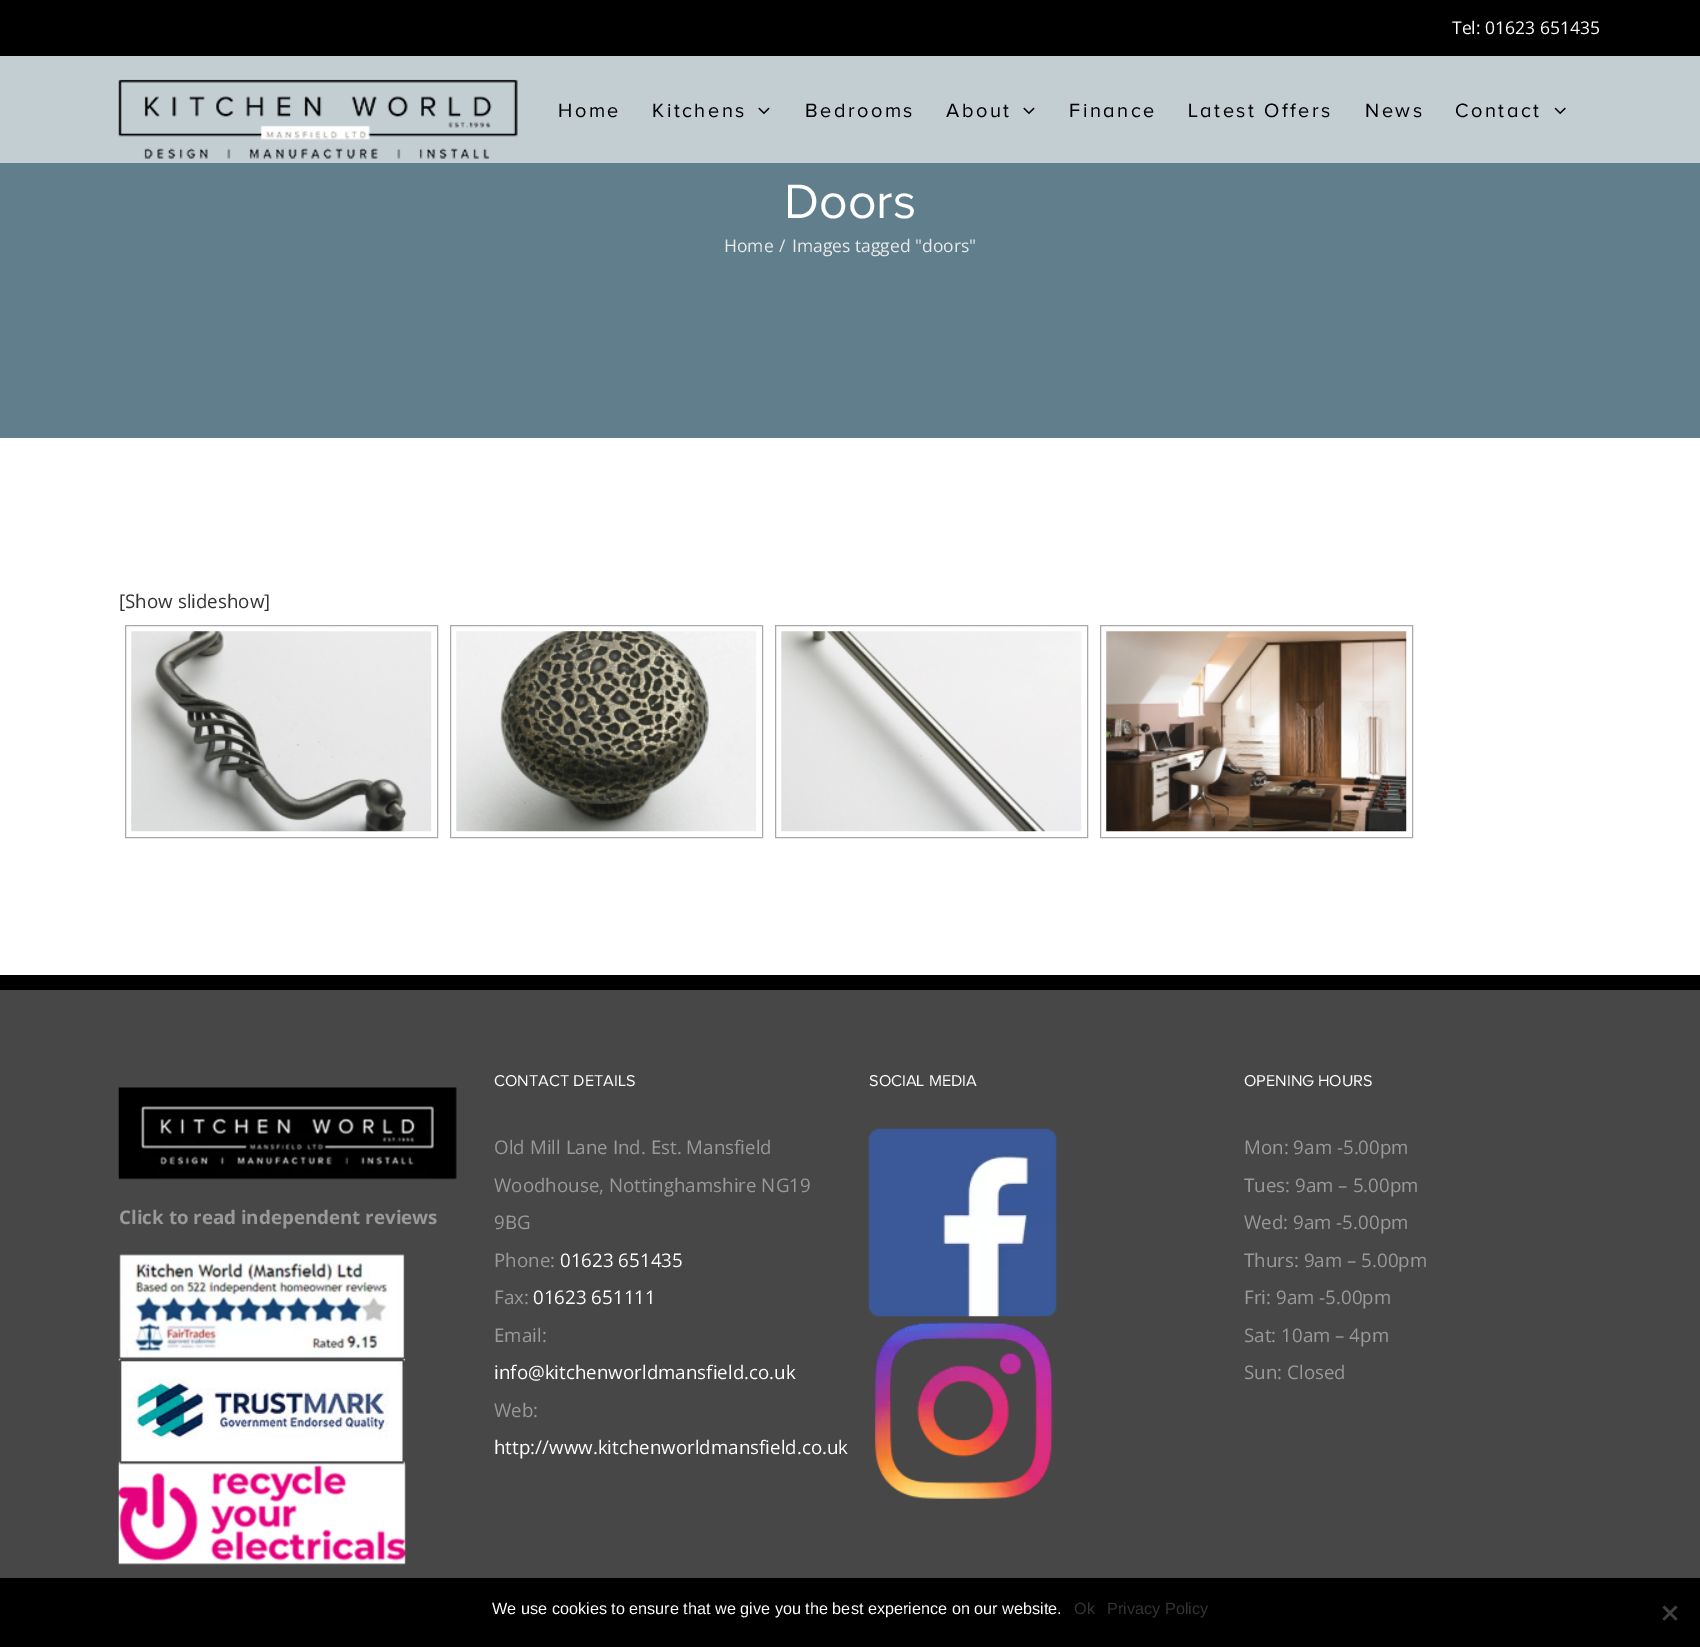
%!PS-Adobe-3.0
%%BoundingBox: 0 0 1700 1647
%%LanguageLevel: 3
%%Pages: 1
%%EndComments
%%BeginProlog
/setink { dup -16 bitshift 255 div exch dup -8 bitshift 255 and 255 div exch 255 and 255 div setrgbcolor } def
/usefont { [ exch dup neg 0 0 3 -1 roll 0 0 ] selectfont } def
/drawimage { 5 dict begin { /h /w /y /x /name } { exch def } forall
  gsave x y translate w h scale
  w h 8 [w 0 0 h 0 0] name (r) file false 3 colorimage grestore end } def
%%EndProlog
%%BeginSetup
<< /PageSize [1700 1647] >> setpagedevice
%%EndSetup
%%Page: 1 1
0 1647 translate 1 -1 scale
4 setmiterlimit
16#FFFFFF setink
0 0 1700 1647 rectfill
16#000000 setink
0 0 1700 56 rectfill
/OpenSans-Regular 17.5 usefont
16#FFFFFF setink
1452 34 moveto (Tel: 01623 651435) show
16#C3CED3 setink
0 56 1700 107 rectfill
(img1.raw) 118 79 400 80 drawimage
/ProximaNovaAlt-Regular 20 usefont
16#000000 setink
558 117 moveto 2.5 0 (Home) ashow
652 117 moveto 2.5 0 (Kitchens) ashow
(img2.raw) 758 107 12 8 drawimage
805 117 moveto 2.5 0 (Bedrooms) ashow
946 117 moveto 2.5 0 (About) ashow
(img2.raw) 1023 107 12 8 drawimage
1069 117 moveto 2.5 0 (Finance) ashow
1188 117 moveto 2.5 0 (Latest Offers) ashow
1365 117 moveto 2.5 0 (News) ashow
1455 117 moveto 2.5 0 (Contact) ashow
(img3.raw) 1554 107 12 8 drawimage
16#607E8C setink
0 163 1700 275 rectfill
/ProximaNovaAlt-Regular 50 usefont
16#FFFFFF setink
784 218 moveto (Doors) show
/OpenSans-Regular 17.5 usefont
16#EAEAEA setink
[
    [(Home) 724 252]
    [(/) 779 252]
    [(Images tagged "doors") 792 252]
] { aload pop moveto show } forall
/OpenSans-Regular 18.75 usefont
16#333333 setink
119 608 moveto ([Show slideshow]) show
16#A9A9A9 setink
125.5 625.5 312 212 rectstroke
(img4.raw) 131 631 301 201 drawimage
450.5 625.5 312 212 rectstroke
(img5.raw) 456 631 301 201 drawimage
775.5 625.5 312 212 rectstroke
(img6.raw) 781 631 301 201 drawimage
1100.5 625.5 312 212 rectstroke
(img7.raw) 1106 631 301 201 drawimage
16#474747 setink
0 990 1700 588 rectfill
16#000000 setink
0 975 1700 15 rectfill
(img8.raw) 118 1087 339 93 drawimage
/OpenSans-Bold 18.75 usefont
16#999999 setink
119 1224 moveto (Click to read independent reviews) show
(img9.raw) 119 1254 286 105 drawimage
(img10.raw) 118 1358 287 106 drawimage
(img11.raw) 118 1463 288 102 drawimage
/ProximaNovaAlt-Regular 16.25 usefont
16#FFFFFF setink
494 1086 moveto (CONTACT DETAILS) show
/OpenSans-Regular 18.75 usefont
16#999999 setink
[
    [(Old Mill Lane Ind. Est. Mansfield) 494 1154]
    [(Woodhouse, Nottinghamshire NG19) 494 1192]
    [(9BG) 494 1229]
    [(Phone:) 494 1267]
] { aload pop moveto show } forall
16#FFFFFF setink
560 1267 moveto (01623 651435) show
16#999999 setink
494 1304 moveto (Fax:) show
16#FFFFFF setink
533 1304 moveto (01623 651111) show
16#999999 setink
494 1342 moveto (Email:) show
16#FFFFFF setink
494 1379 moveto (info@kitchenworldmansfield.co.uk) show
16#999999 setink
494 1417 moveto (Web:) show
16#FFFFFF setink
494 1454 moveto (http://www.kitchenworldmansfield.co.uk) show
/ProximaNovaAlt-Regular 16.25 usefont
869 1086 moveto (SOCIAL MEDIA) show
(img12.raw) 868 1128 189 189 drawimage
(img13.raw) 874 1322 179 177 drawimage
1244 1086 moveto (OPENING HOURS) show
/OpenSans-Regular 18.75 usefont
16#999999 setink
[
    [(Mon: 9am -5.00pm) 1244 1154]
    [(Tues: 9am – 5.00pm) 1244 1192]
    [(Wed: 9am -5.00pm) 1244 1229]
    [(Thurs: 9am – 5.00pm) 1244 1267]
    [(Fri: 9am -5.00pm) 1244 1304]
    [(Sat: 10am – 4pm) 1244 1342]
    [(Sun: Closed) 1244 1379]
] { aload pop moveto show } forall
16#000000 setink
0 1578 1700 69 rectfill
/LiberationSans-Regular 16.25 usefont
16#FFFFFF setink
492 1614 moveto (We use cookies to ensure that we give you the best experience on our website.) show
16#333333 setink
1074 1614 moveto (Ok) show
1107 1614 moveto (Privacy Policy) show
16#404040 setink
1675.5 1605.5 moveto 1677.5 1607.5 lineto 1664.5 1620.5 lineto 1662.5 1619 lineto closepath fill
1662.5 1607.5 moveto 1664.5 1605.5 lineto 1677.5 1619 lineto 1675.5 1620.5 lineto closepath fill
showpage
%%EOF
